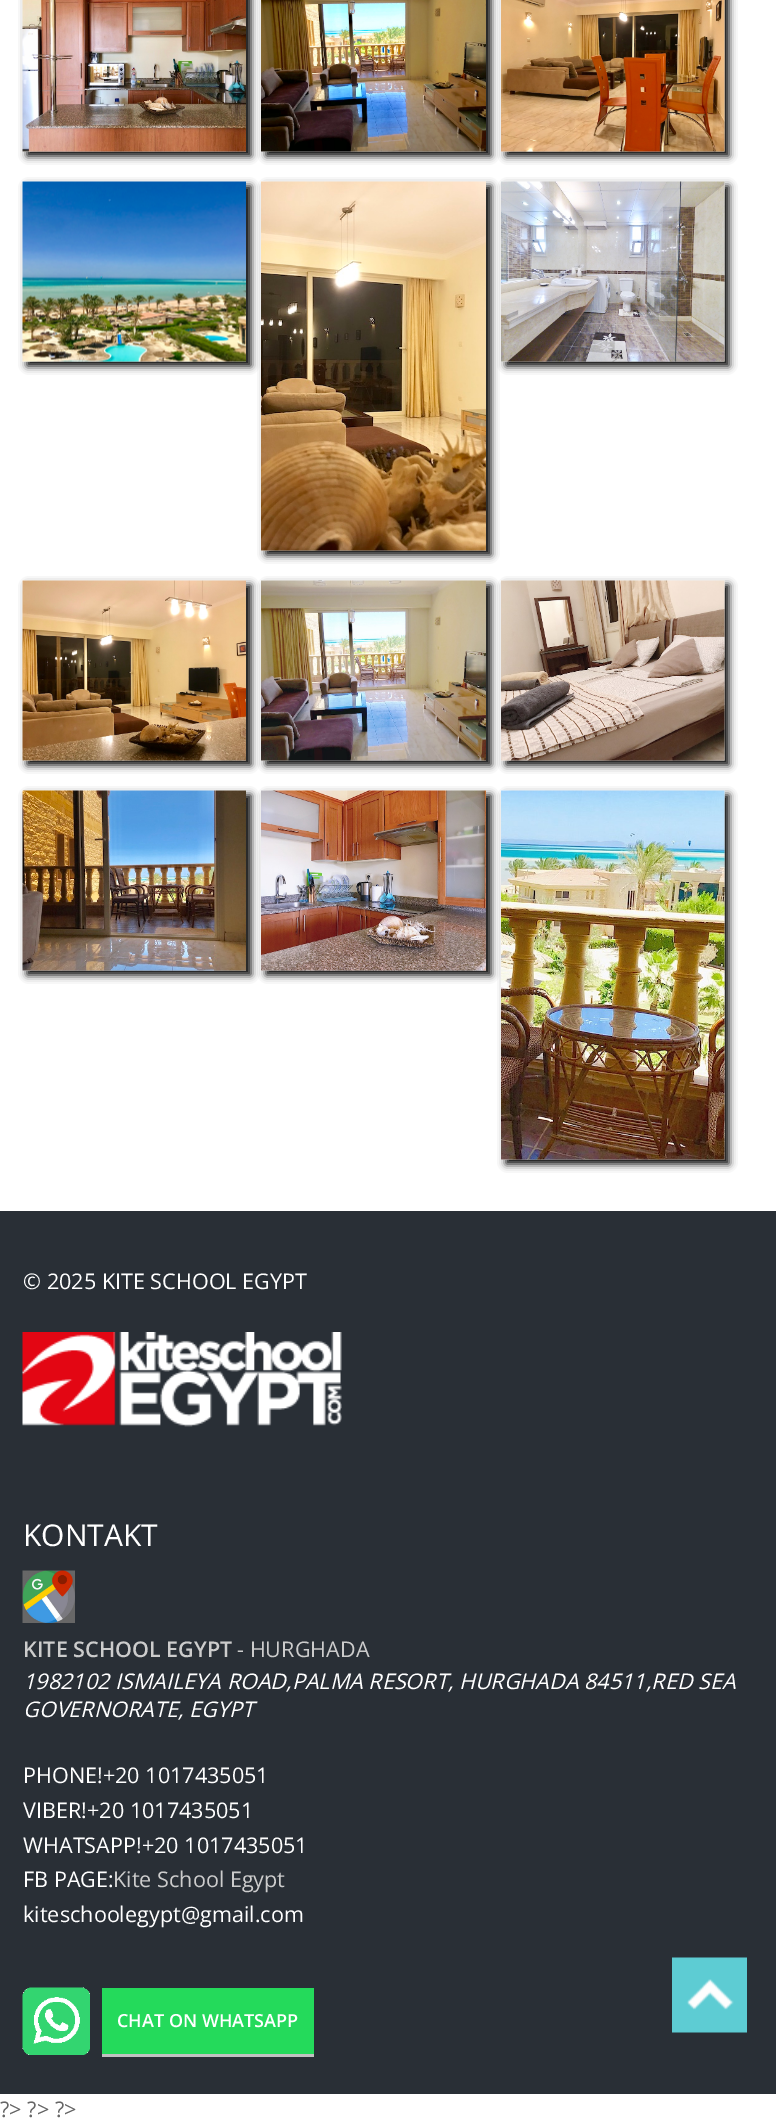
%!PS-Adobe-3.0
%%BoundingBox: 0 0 776 2122
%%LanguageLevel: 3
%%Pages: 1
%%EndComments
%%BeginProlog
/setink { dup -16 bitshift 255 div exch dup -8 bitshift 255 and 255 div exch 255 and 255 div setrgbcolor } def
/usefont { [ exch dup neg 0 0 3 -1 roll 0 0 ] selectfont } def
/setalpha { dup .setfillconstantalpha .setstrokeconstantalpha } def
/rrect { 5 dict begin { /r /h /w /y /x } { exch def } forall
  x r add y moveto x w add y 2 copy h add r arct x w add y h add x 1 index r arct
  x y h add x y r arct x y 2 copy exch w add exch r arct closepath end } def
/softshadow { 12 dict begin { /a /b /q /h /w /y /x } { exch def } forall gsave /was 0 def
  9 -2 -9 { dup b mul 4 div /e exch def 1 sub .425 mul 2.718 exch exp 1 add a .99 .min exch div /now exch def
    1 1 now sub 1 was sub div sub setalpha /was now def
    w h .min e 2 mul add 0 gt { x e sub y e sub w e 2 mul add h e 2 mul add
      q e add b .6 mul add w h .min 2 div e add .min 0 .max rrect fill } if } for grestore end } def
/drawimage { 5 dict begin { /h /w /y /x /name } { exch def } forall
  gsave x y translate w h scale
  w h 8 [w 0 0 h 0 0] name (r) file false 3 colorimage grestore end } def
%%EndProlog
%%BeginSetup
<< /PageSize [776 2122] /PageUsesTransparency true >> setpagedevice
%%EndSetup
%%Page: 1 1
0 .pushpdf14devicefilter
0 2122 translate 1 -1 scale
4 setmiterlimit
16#FFFFFF setink
0 0 776 2122 rectfill
16#000000 setink
27 -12 224 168 0 4 1 softshadow
(img1.raw) 22 0 224 152 drawimage
266 -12 225 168 0 4 1 softshadow
(img2.raw) 261 0 225 152 drawimage
506 -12 223 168 0 4 1 softshadow
(img3.raw) 501 0 224 152 drawimage
27 186 224 180 0 4 1 softshadow
(img4.raw) 22 181 224 181 drawimage
266 186 225 369 0 4 1 softshadow
(img5.raw) 261 181 225 370 drawimage
506 186 223 180 0 4 1 softshadow
(img6.raw) 501 181 224 181 drawimage
27 585 224 180 0 4 1 softshadow
(img7.raw) 22 580 224 181 drawimage
266 585 225 180 0 4 1 softshadow
(img8.raw) 261 580 225 181 drawimage
506 585 223 180 0 4 1 softshadow
(img9.raw) 501 580 224 181 drawimage
27 795 224 180 0 4 1 softshadow
(img10.raw) 22 790 224 181 drawimage
266 795 225 180 0 4 1 softshadow
(img11.raw) 261 790 225 181 drawimage
506 795 223 369 0 4 1 softshadow
(img12.raw) 501 790 224 370 drawimage
16#292F36 setink
0 1211 776 883 rectfill
/OpenSans-Regular 21.6 usefont
16#FFFFFF setink
23 1289 moveto (© 2025 KITE SCHOOL EGYPT) show
(img13.raw) 22 1332 320 95 drawimage
/OpenSans-Regular 30 usefont
23 1546 moveto (KONTAKT) show
(img14.raw) 22 1570 53 53 drawimage
/OpenSans-SemiBold 21.6 usefont
16#CCCCCC setink
23 1657 moveto (KITE SCHOOL EGYPT) show
/OpenSans-Regular 21.6 usefont
237 1657 moveto (- HURGHADA) show
/OpenSans-Italic 21.6 usefont
16#FFFFFF setink
23 1689 moveto (1982102 ISMAILEYA ROAD,PALMA RESORT, HURGHADA 84511,RED SEA) show
23 1717 moveto (GOVERNORATE, EGYPT) show
/OpenSans-Regular 21.6 usefont
[
    [(PHONE!+20 1017435051) 23 1783]
    [(VIBER!+20 1017435051) 23 1818]
    [(WHATSAPP!+20 1017435051) 23 1853]
    [(FB PAGE:) 23 1887]
] { aload pop moveto show } forall
16#CCCCCC setink
113 1887 moveto (Kite School Egypt) show
16#FFFFFF setink
23 1922 moveto (kiteschoolegypt@gmail.com) show
(img15.raw) 22 1987 68 68 drawimage
16#24DA5B setink
102 1988 212 66 rectfill
16#C1C1C1 setink
102 2054 212 3 rectfill
/OpenSans-SemiBold 18 usefont
16#FFFFFF setink
117 2027 moveto (CHAT ON WHATSAPP) show
(img16.raw) 672 1957 75 76 drawimage
/OpenSans-Regular 21.6 usefont
16#666666 setink
0 2117 moveto (?> ?> ?>) show
.poppdf14devicefilter showpage
%%EOF
